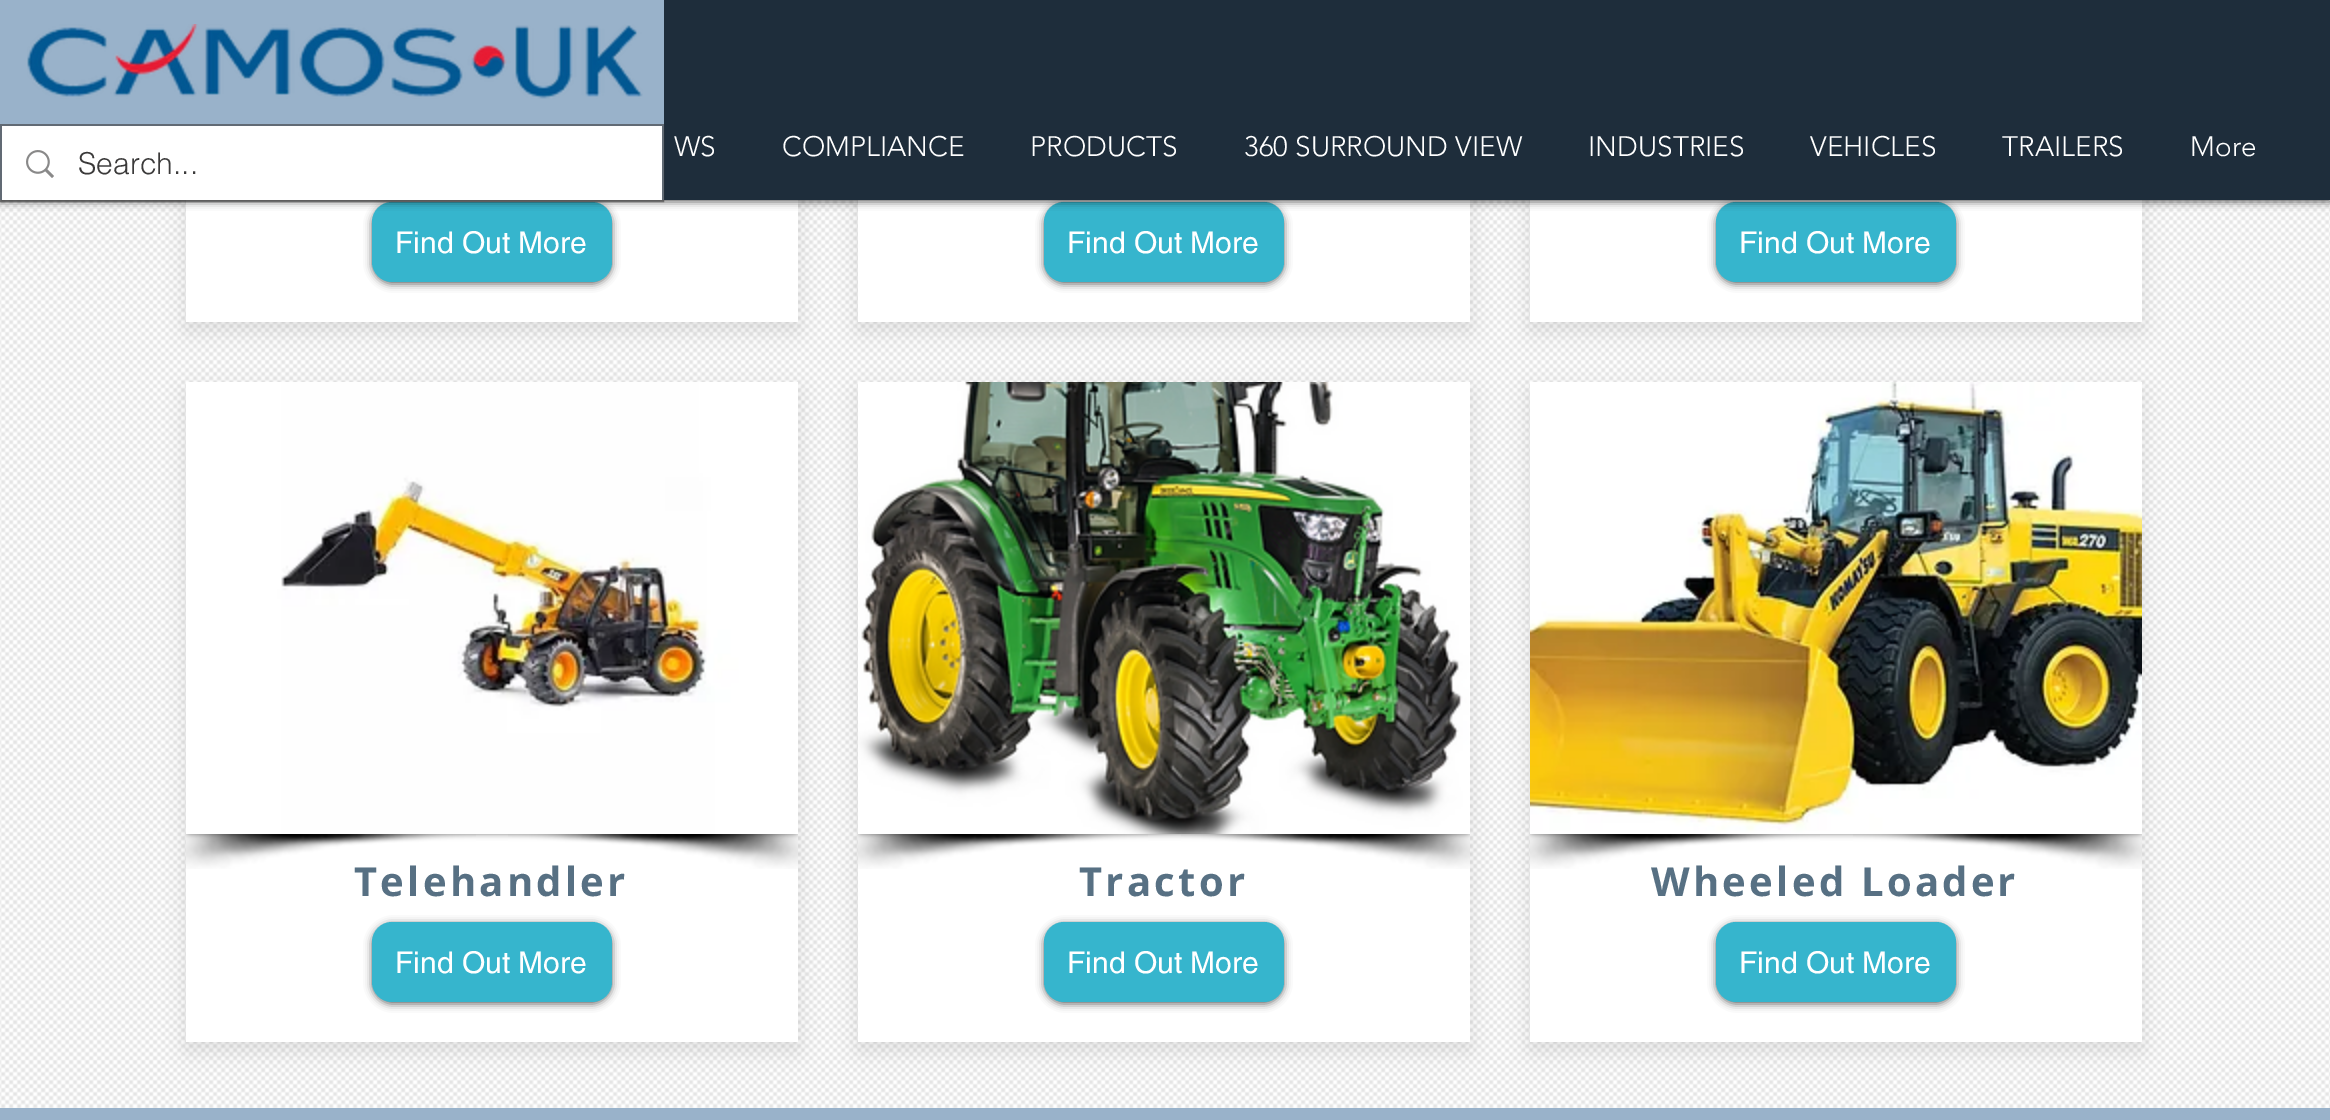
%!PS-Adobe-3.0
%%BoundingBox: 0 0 2330 1120
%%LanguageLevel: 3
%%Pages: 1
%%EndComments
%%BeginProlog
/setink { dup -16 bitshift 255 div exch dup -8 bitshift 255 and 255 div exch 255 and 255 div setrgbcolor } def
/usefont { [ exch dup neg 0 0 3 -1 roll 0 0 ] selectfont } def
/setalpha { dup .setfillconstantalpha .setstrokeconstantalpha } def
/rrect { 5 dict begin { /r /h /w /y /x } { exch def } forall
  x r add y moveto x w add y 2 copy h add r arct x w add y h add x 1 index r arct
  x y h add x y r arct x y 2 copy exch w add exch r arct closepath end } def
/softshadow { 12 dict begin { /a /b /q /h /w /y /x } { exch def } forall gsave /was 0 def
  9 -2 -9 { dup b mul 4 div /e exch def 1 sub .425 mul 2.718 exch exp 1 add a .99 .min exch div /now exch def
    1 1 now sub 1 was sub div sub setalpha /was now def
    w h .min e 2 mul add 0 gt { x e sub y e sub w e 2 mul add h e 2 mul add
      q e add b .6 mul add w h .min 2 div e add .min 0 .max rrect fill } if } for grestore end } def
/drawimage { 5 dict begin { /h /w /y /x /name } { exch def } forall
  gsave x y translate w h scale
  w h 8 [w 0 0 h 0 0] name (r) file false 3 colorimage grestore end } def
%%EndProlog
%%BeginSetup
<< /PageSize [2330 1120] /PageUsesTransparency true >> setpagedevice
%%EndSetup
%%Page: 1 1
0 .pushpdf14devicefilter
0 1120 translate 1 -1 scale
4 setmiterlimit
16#FFFFFF setink
0 0 2330 1120 rectfill
(img10.raw) 0 200 2330 908 drawimage
16#000000 setink
186 -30 612 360 0 10 0.1 softshadow
16#FFFFFF setink
186 200 612 122 rectfill
16#000000 setink
372 204 240 80 20 4 0.6 softshadow
16#36B5CD setink
372 202 240 80 20 rrect fill
16#000000 setink
858 -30 612 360 0 10 0.1 softshadow
16#FFFFFF setink
858 200 612 122 rectfill
16#000000 setink
1044 204 240 80 20 4 0.6 softshadow
16#36B5CD setink
1044 202 240 80 20 rrect fill
16#000000 setink
1530 -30 612 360 0 10 0.1 softshadow
16#FFFFFF setink
1530 200 612 122 rectfill
16#000000 setink
1716 204 240 80 20 4 0.6 softshadow
16#36B5CD setink
1716 202 240 80 20 rrect fill
16#000000 setink
0 2 2330 200 0 4 0.6 softshadow
16#1E2D3B setink
664 0 1666 200 rectfill
/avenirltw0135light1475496-Light 28 usefont
16#FFFFFF setink
[
    [(WS) 674 156]
    [(COMPLIANCE) 782 156]
    [(PRODUCTS) 1030 156]
    [(360 SURROUND VIEW) 1244 156]
    [(INDUSTRIES) 1588 156]
    [(VEHICLES) 1810 156]
    [(TRAILERS) 2002 156]
    [(More) 2190 156]
] { aload pop moveto show } forall
16#99B2CA setink
0 0 664 200 rectfill
(img1.raw) 27 24 616 75 drawimage
0.6 setalpha
16#3B3A3A setink
2 setlinewidth
1 125 662 76 rectstroke
1 setalpha
16#FFFFFF setink
2 126 660 74 rectfill
(img2.raw) 26 150 28 28 drawimage
/helvetica-Light 30 usefont
16#3B3A3A setink
78 174 moveto (Search...) show
/helvetica-Regular 30 usefont
16#FFFFFF setink
395 253 moveto (Find Out More) show
16#000000 setink
186 390 612 660 0 10 0.1 softshadow
16#FFFFFF setink
186 834 612 208 rectfill
gsave
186 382 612 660 rectclip
16#000000 setink
186 382 612 452 0 3 0.5 softshadow
grestore
(img3.raw) 186 382 612 452 drawimage
(img4.raw) 186 834 290 35 drawimage
(img5.raw) 508 834 290 35 drawimage
/OpenSans-Bold 40 usefont
16#577083 setink
354 896 moveto 3.25 0 (Telehandler) ashow
16#000000 setink
372 924 240 80 20 4 0.6 softshadow
16#36B5CD setink
372 922 240 80 20 rrect fill
/helvetica-Regular 30 usefont
16#FFFFFF setink
395 973 moveto (Find Out More) show
1067 253 moveto (Find Out More) show
16#000000 setink
858 390 612 660 0 10 0.1 softshadow
16#FFFFFF setink
858 834 612 208 rectfill
gsave
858 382 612 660 rectclip
16#000000 setink
858 382 612 452 0 3 0.5 softshadow
grestore
(img6.raw) 858 382 612 452 drawimage
(img7.raw) 858 834 290 35 drawimage
(img8.raw) 1181 834 289 35 drawimage
/OpenSans-Bold 40 usefont
16#577083 setink
1079 896 moveto 3.25 0 (Tractor) ashow
16#000000 setink
1044 924 240 80 20 4 0.6 softshadow
16#36B5CD setink
1044 922 240 80 20 rrect fill
/helvetica-Regular 30 usefont
16#FFFFFF setink
1067 973 moveto (Find Out More) show
1739 253 moveto (Find Out More) show
16#000000 setink
1530 390 612 660 0 10 0.1 softshadow
16#FFFFFF setink
1530 834 612 208 rectfill
gsave
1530 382 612 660 rectclip
16#000000 setink
1530 382 612 452 0 3 0.5 softshadow
grestore
(img9.raw) 1530 382 612 452 drawimage
(img7.raw) 1530 834 290 35 drawimage
(img8.raw) 1853 834 289 35 drawimage
/OpenSans-Bold 40 usefont
16#577083 setink
1651 896 moveto 3.25 0 (Wheeled Loader) ashow
16#000000 setink
1716 924 240 80 20 4 0.6 softshadow
16#36B5CD setink
1716 922 240 80 20 rrect fill
/helvetica-Regular 30 usefont
16#FFFFFF setink
1739 973 moveto (Find Out More) show
16#99B2CA setink
0 1108 2330 12 rectfill
.poppdf14devicefilter showpage
%%EOF
